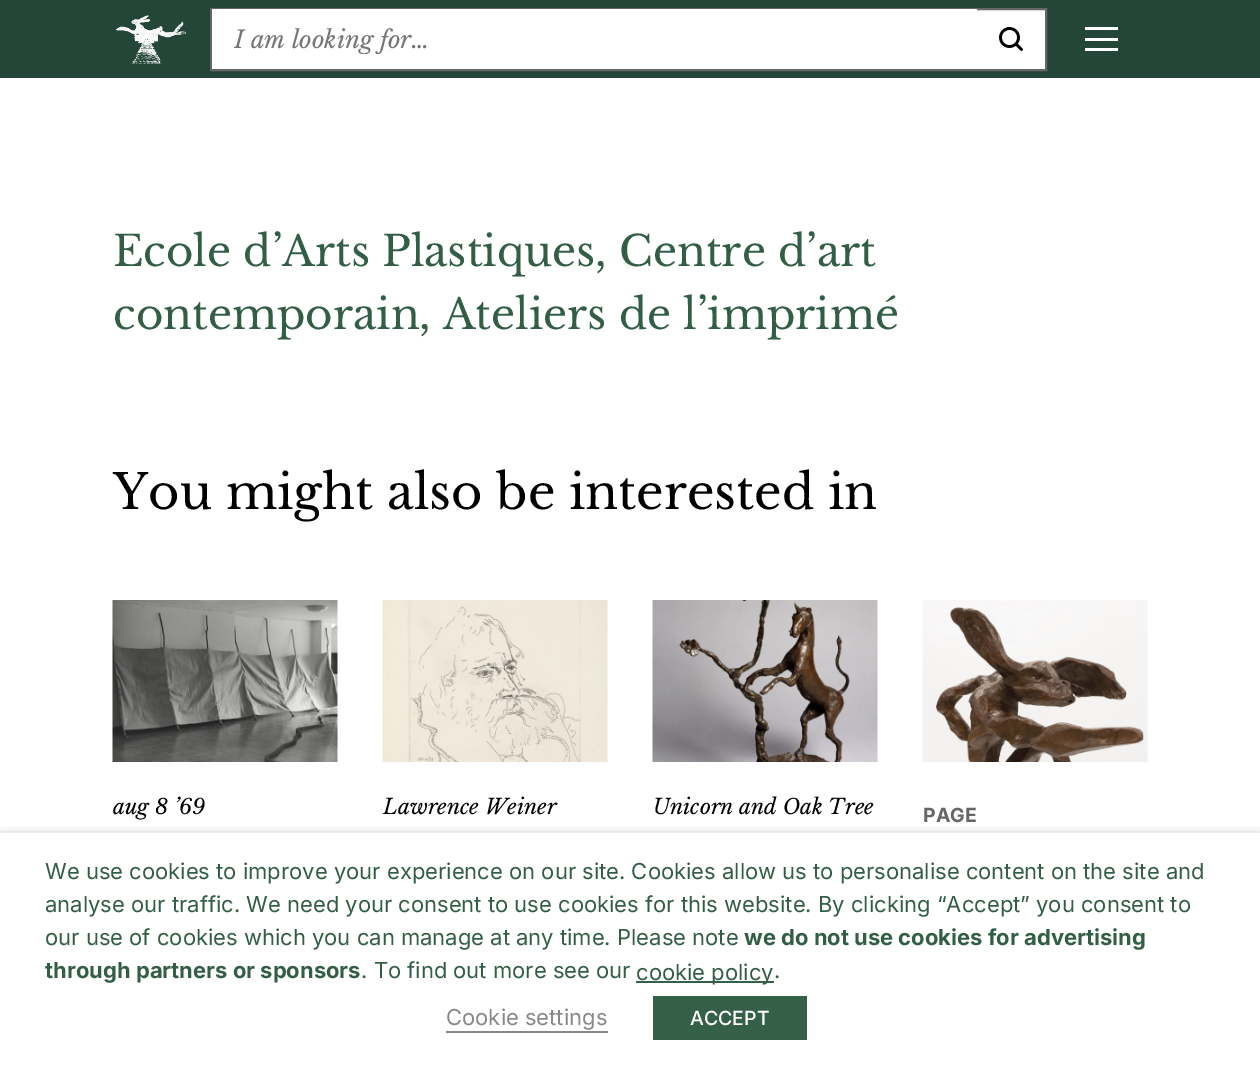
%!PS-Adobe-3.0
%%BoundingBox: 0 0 1260 1069
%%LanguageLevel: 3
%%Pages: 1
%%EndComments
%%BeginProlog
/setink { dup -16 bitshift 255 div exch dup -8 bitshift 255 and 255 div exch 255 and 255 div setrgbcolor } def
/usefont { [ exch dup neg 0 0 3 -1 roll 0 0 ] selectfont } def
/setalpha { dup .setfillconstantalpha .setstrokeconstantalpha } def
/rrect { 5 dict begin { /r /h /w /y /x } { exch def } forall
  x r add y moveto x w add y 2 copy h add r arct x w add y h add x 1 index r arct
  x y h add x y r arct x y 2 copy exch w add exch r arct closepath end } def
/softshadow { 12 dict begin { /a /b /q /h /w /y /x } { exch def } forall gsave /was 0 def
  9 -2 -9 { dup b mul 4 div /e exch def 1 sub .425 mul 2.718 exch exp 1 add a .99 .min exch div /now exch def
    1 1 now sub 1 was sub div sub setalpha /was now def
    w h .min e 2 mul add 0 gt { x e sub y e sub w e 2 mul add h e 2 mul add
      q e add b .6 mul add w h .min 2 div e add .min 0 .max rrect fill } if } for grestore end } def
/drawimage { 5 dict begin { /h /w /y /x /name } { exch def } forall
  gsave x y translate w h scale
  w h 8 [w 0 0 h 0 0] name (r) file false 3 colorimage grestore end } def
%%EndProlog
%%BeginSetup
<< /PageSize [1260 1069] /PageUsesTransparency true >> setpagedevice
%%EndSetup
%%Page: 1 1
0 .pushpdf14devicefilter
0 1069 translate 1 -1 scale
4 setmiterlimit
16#FFFFFF setink
0 0 1260 1069 rectfill
16#234638 setink
0 0 1260 78 rectfill
(img1.raw) 116 15 70 49 drawimage
16#FFFFFF setink
977 10 68 59 rectfill
16#666666 setink
2 setlinewidth
211 9 835 61 rectstroke
16#FFFFFF setink
212 9 765 60 rectfill
gsave
234 24 698 30 rectclip
/LibreBaskerville-Italic 24 usefont
16#757575 setink
234 48 moveto (I am looking for…) show
grestore
(img2.raw) 999 27 24 24 drawimage
[
    [1085 27 33 3 16#FFFFFF]
    [1085 38 33 3 16#FFFFFF]
    [1085 48 33 3 16#FFFFFF]
] { aload pop setink rectfill } forall
/LibreBaskerville-Regular 42 usefont
16#325E46 setink
113 266 moveto (Ecole d’Arts Plastiques, Centre d’art) show
113 329 moveto (contemporain, Ateliers de l’imprimé) show
/LibreBaskerville-Regular 48 usefont
16#000000 setink
113 509 moveto (You might also be interested in) show
(img3.raw) 112 600 226 162 drawimage
/LibreBaskerville-Italic 21 usefont
113 814 moveto (aug 8 ’69) show
(img4.raw) 382 600 226 162 drawimage
383 814 moveto (Lawrence Weiner) show
(img5.raw) 652 600 226 162 drawimage
653 814 moveto (Unicorn and Oak Tree) show
(img6.raw) 922 600 226 162 drawimage
/Inter-Bold 19.5 usefont
16#666666 setink
923 822 moveto (PAGE) show
gsave
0 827 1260 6 rectclip
16#000000 setink
0 840 1260 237 0 7.5 0.5 softshadow
grestore
/Inter-Regular 22 usefont
16#325E46 setink
[
    [(We use cookies to improve your experience on our site. Cookies allow us to personalise content on the site and) 45 879]
    [(analyse our traffic. We need your consent to use cookies for this website. By clicking “Accept” you consent to) 45 912]
    [(our use of cookies which you can manage at any time. Please note) 45 945]
] { aload pop moveto show } forall
/Inter-Bold 22 usefont
744 945 moveto (we do not use cookies for advertising) show
45 978 moveto (through partners or sponsors) show
/Inter-Regular 22 usefont
361 978 moveto (. To find out more see our) show
16#336047 setink
636 981 138 2 rectfill
16#325E46 setink
636 980 moveto (cookie policy) show
774 978 moveto (.) show
16#898888 setink
446 1025 moveto (Cookie settings) show
446 1031 162 2 rectfill
16#336047 setink
653 996 154 44 rectfill
/Inter-Medium 19.5 usefont
16#FFFFFF setink
690 1025 moveto (ACCEPT) show
.poppdf14devicefilter showpage
%%EOF
